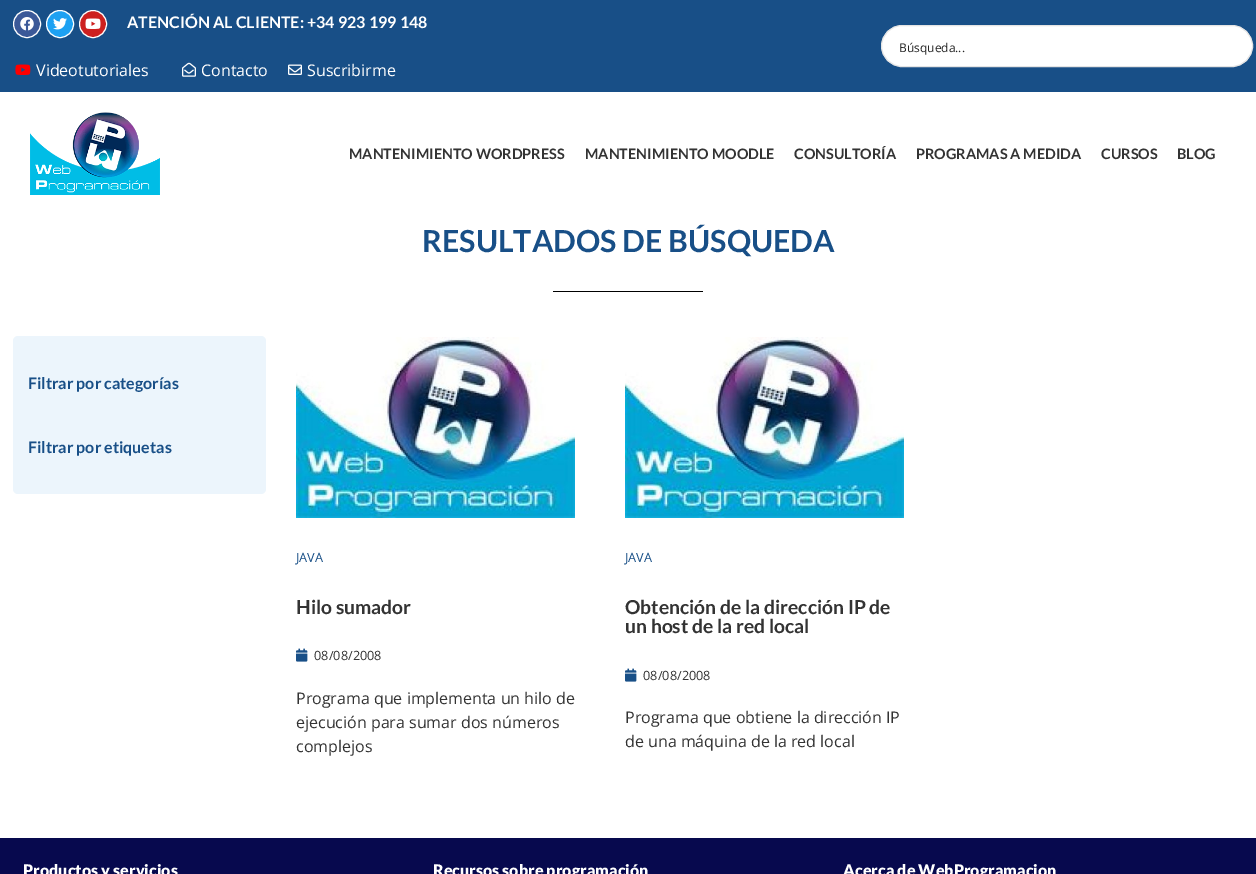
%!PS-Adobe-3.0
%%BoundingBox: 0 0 1256 874
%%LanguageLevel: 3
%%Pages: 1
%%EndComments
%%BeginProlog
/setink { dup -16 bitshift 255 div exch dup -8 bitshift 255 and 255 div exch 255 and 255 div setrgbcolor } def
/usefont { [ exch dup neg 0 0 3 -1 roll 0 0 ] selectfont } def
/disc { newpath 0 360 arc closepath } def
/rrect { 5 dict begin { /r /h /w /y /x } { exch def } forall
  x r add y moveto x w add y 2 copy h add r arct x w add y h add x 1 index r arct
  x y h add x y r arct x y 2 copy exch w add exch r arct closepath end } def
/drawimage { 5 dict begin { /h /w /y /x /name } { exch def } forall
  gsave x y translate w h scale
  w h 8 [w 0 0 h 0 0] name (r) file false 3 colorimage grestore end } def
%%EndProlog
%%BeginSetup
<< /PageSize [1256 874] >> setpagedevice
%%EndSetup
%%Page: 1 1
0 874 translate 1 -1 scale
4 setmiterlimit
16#FFFFFF setink
0 0 1256 874 rectfill
16#184F87 setink
0 0 1256 92 rectfill
16#3B5998 setink
27 24 13.5 disc gsave fill grestore
16#FFFFFF setink
stroke
(img1.raw) 20 17 14 14 drawimage
16#1DA1F2 setink
60 24 13.5 disc gsave fill grestore
16#FFFFFF setink
stroke
(img2.raw) 53 18 14 12 drawimage
16#CD201F setink
93 24 13.5 disc gsave fill grestore
16#FFFFFF setink
stroke
(img3.raw) 85 18 16 11 drawimage
/Lato-Bold 16 usefont
127 28 moveto (ATENCIÓN AL CLIENTE: +34 923 199 148) show
(img4.raw) 15 64 16 11 drawimage
/OpenSans-Regular 16 usefont
36 76 moveto (Videotutoriales) show
(img5.raw) 182 62 14 15 drawimage
201 76 moveto (Contacto) show
(img6.raw) 288 64 14 11 drawimage
307 76 moveto (Suscribirme) show
881.5 25.5 371 41 20.5 rrect gsave fill grestore
16#E4E4E4 setink
stroke
/OpenSans-Regular 12 usefont
16#262626 setink
899 52 moveto (Búsqueda...) show
(img7.raw) 30 112 130 83 drawimage
/Lato-Bold 14.4 usefont
16#333333 setink
[
    [(MANTENIMIENTO WORDPRESS) 349 159]
    [(MANTENIMIENTO MOODLE) 585 159]
    [(CONSULTORÍA) 794 159]
    [(PROGRAMAS A MEDIDA) 916 159]
    [(CURSOS) 1101 159]
    [(BLOG) 1177 159]
] { aload pop moveto show } forall
/Lato-Bold 30.4 usefont
16#184F87 setink
422 252 moveto (RESULTADOS DE BÚSQUEDA) show
16#000000 setink
553 291 150 1 rectfill
16#ECF5FC setink
13 336 253 158 5 rrect fill
/Lato-Bold 16 usefont
16#184F87 setink
28 389 moveto (Filtrar por categorías) show
28 453 moveto (Filtrar por etiquetas) show
(img8.raw) 296 337 279 181 drawimage
/OpenSans-Regular 12.75 usefont
296 562 moveto (JAVA) show
/Lato-Bold 19.25 usefont
16#333333 setink
296 614 moveto (Hilo sumador) show
(img9.raw) 296 648 12 14 drawimage
/OpenSans-Regular 12.75 usefont
314 660 moveto (08/08/2008) show
/OpenSans-Regular 16 usefont
[
    [(Programa que implementa un hilo de) 296 704]
    [(ejecución para sumar dos números) 296 728]
    [(complejos) 296 752]
] { aload pop moveto show } forall
(img10.raw) 625 337 279 181 drawimage
/OpenSans-Regular 12.75 usefont
16#184F87 setink
625 562 moveto (JAVA) show
/Lato-Bold 19.25 usefont
16#333333 setink
625 614 moveto (Obtención de la dirección IP de) show
625 633 moveto (un host de la red local) show
(img9.raw) 625 668 12 14 drawimage
/OpenSans-Regular 12.75 usefont
643 680 moveto (08/08/2008) show
/OpenSans-Regular 16 usefont
625 723 moveto (Programa que obtiene la dirección IP) show
625 747 moveto (de una máquina de la red local) show
16#07094E setink
0 838 1256 36 rectfill
/Lato-Black 16 usefont
16#FFFFFF setink
[
    [(Productos y servicios) 23 876]
    [(Recursos sobre programación) 433 876]
    [(Acerca de WebProgramacion) 843 876]
] { aload pop moveto show } forall
showpage
%%EOF
